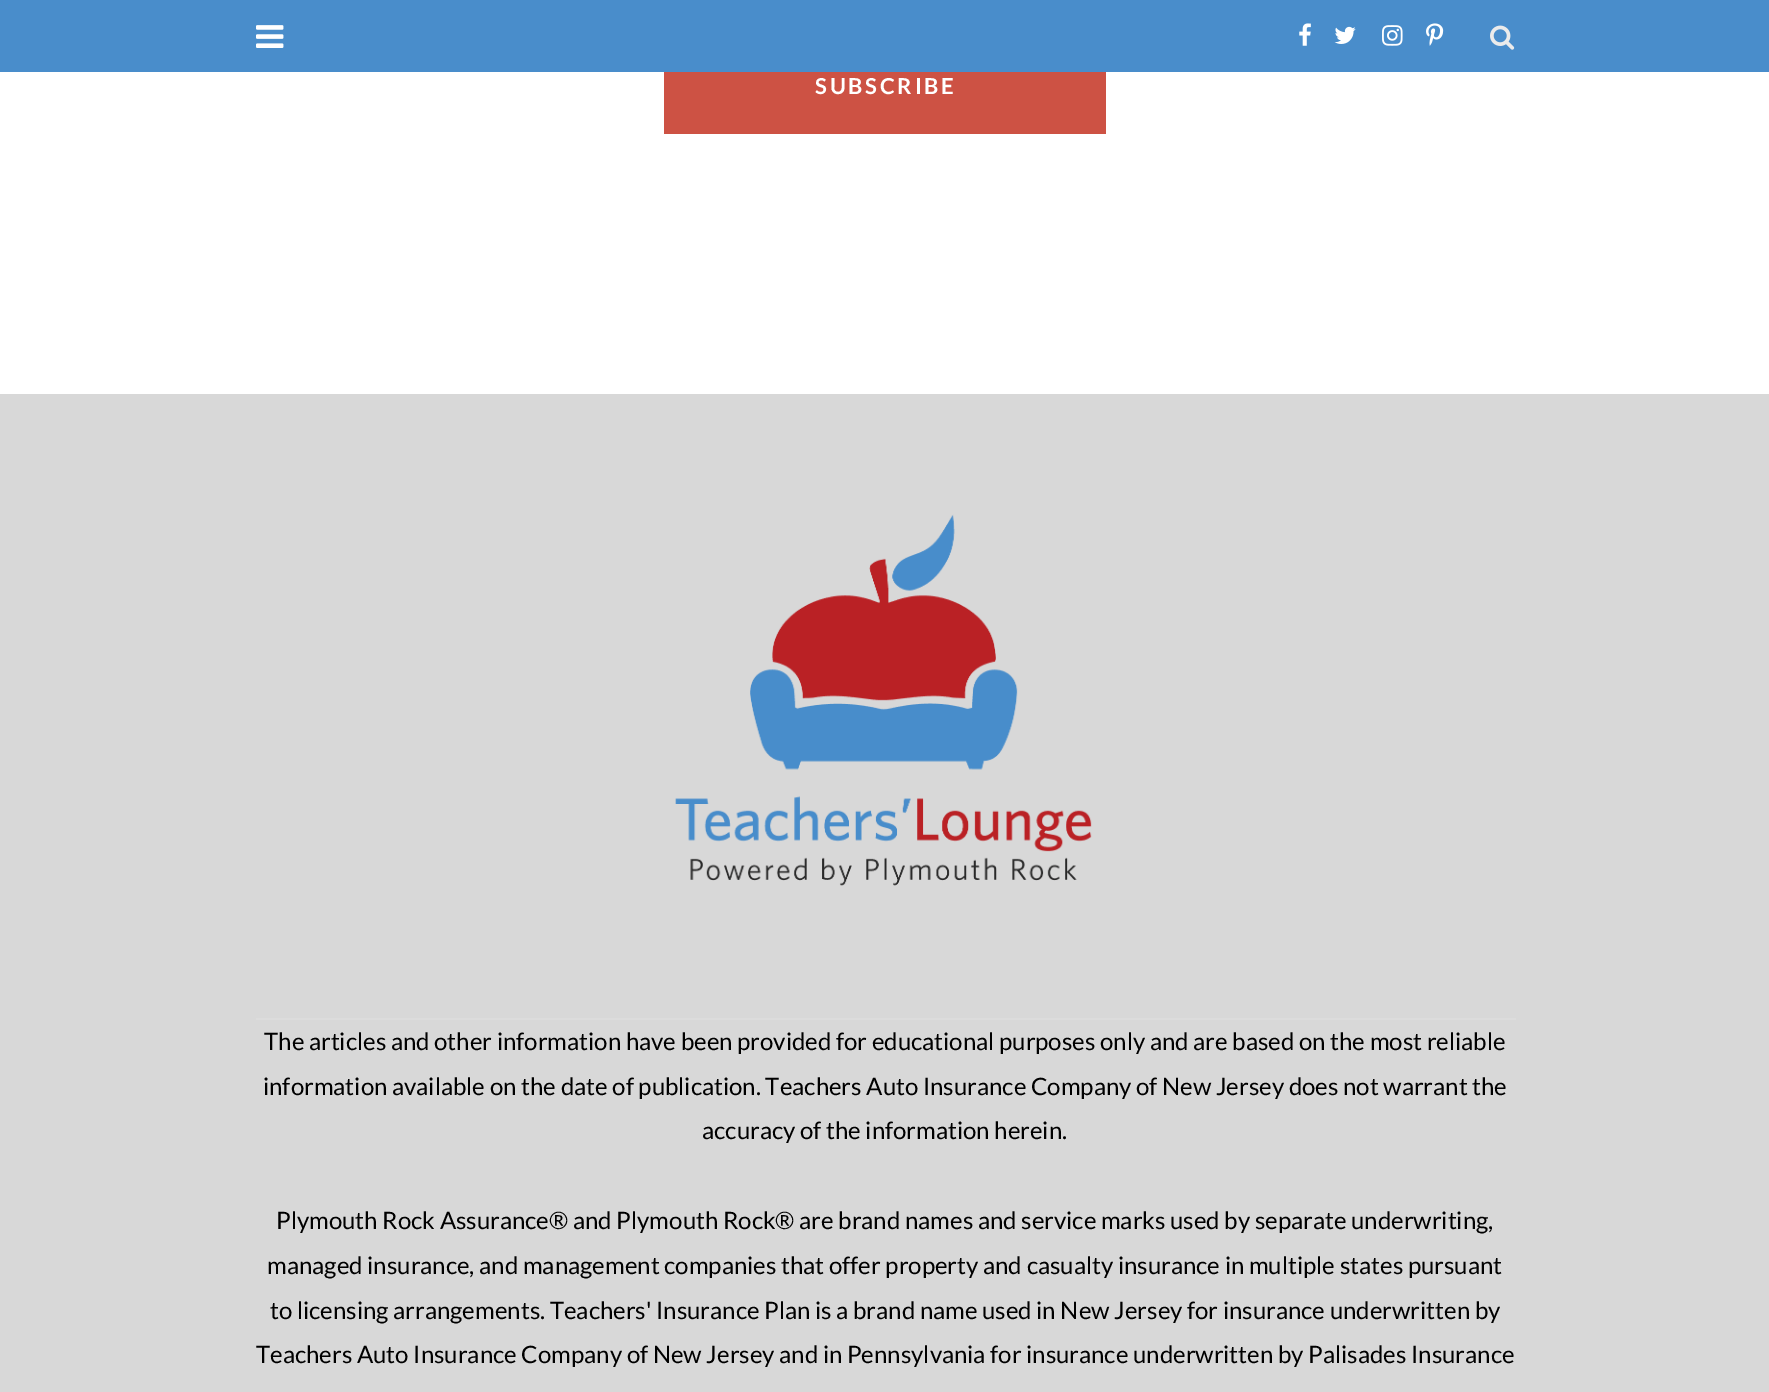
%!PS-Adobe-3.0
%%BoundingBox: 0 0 1769 1392
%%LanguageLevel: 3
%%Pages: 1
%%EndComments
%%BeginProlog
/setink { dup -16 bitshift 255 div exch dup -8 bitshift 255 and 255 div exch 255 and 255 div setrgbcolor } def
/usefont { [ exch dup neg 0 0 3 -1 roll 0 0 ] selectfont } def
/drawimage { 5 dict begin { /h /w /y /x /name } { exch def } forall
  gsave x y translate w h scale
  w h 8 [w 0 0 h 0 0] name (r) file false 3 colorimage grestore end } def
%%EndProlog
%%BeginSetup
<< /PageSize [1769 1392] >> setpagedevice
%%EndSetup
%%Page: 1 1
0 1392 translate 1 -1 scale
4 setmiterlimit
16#FFFFFF setink
0 0 1769 1392 rectfill
16#498DCB setink
0 0 1769 72 rectfill
(img1.raw) 256 25 28 23 drawimage
(img2.raw) 1299 23 12 23 drawimage
(img3.raw) 1334 26 22 18 drawimage
(img4.raw) 1382 25 21 21 drawimage
(img5.raw) 1426 23 18 23 drawimage
(img6.raw) 1490 25 25 25 drawimage
16#CD5244 setink
664 72 442 62 rectfill
/Lato-Bold 22 usefont
16#FFFFFF setink
815 94 moveto 2.75 0 (SUBSCRIBE) ashow
16#D8D8D8 setink
0 394 1769 998 rectfill
16#DCDCDC setink
256 1018 1260 2 rectfill
(img7.raw) 675 514 417 372 drawimage
/Lato-Regular 24 usefont
16#000000 setink
[
    [(The articles and other information have been provided for educational purposes only and are based on the most reliable) 264 1050]
    [(information available on the date of publication. Teachers Auto Insurance Company of New Jersey does not warrant the) 263 1095]
    [(accuracy of the information herein.) 702 1139]
    [(Plymouth Rock Assurance® and Plymouth Rock® are brand names and service marks used by separate underwriting,) 276 1229]
    [(managed insurance, and management companies that offer property and casualty insurance in multiple states pursuant) 267 1274]
    [(to licensing arrangements. Teachers' Insurance Plan is a brand name used in New Jersey for insurance underwritten by) 270 1319]
    [(Teachers Auto Insurance Company of New Jersey and in Pennsylvania for insurance underwritten by Palisades Insurance) 256 1363]
] { aload pop moveto show } forall
showpage
%%EOF
